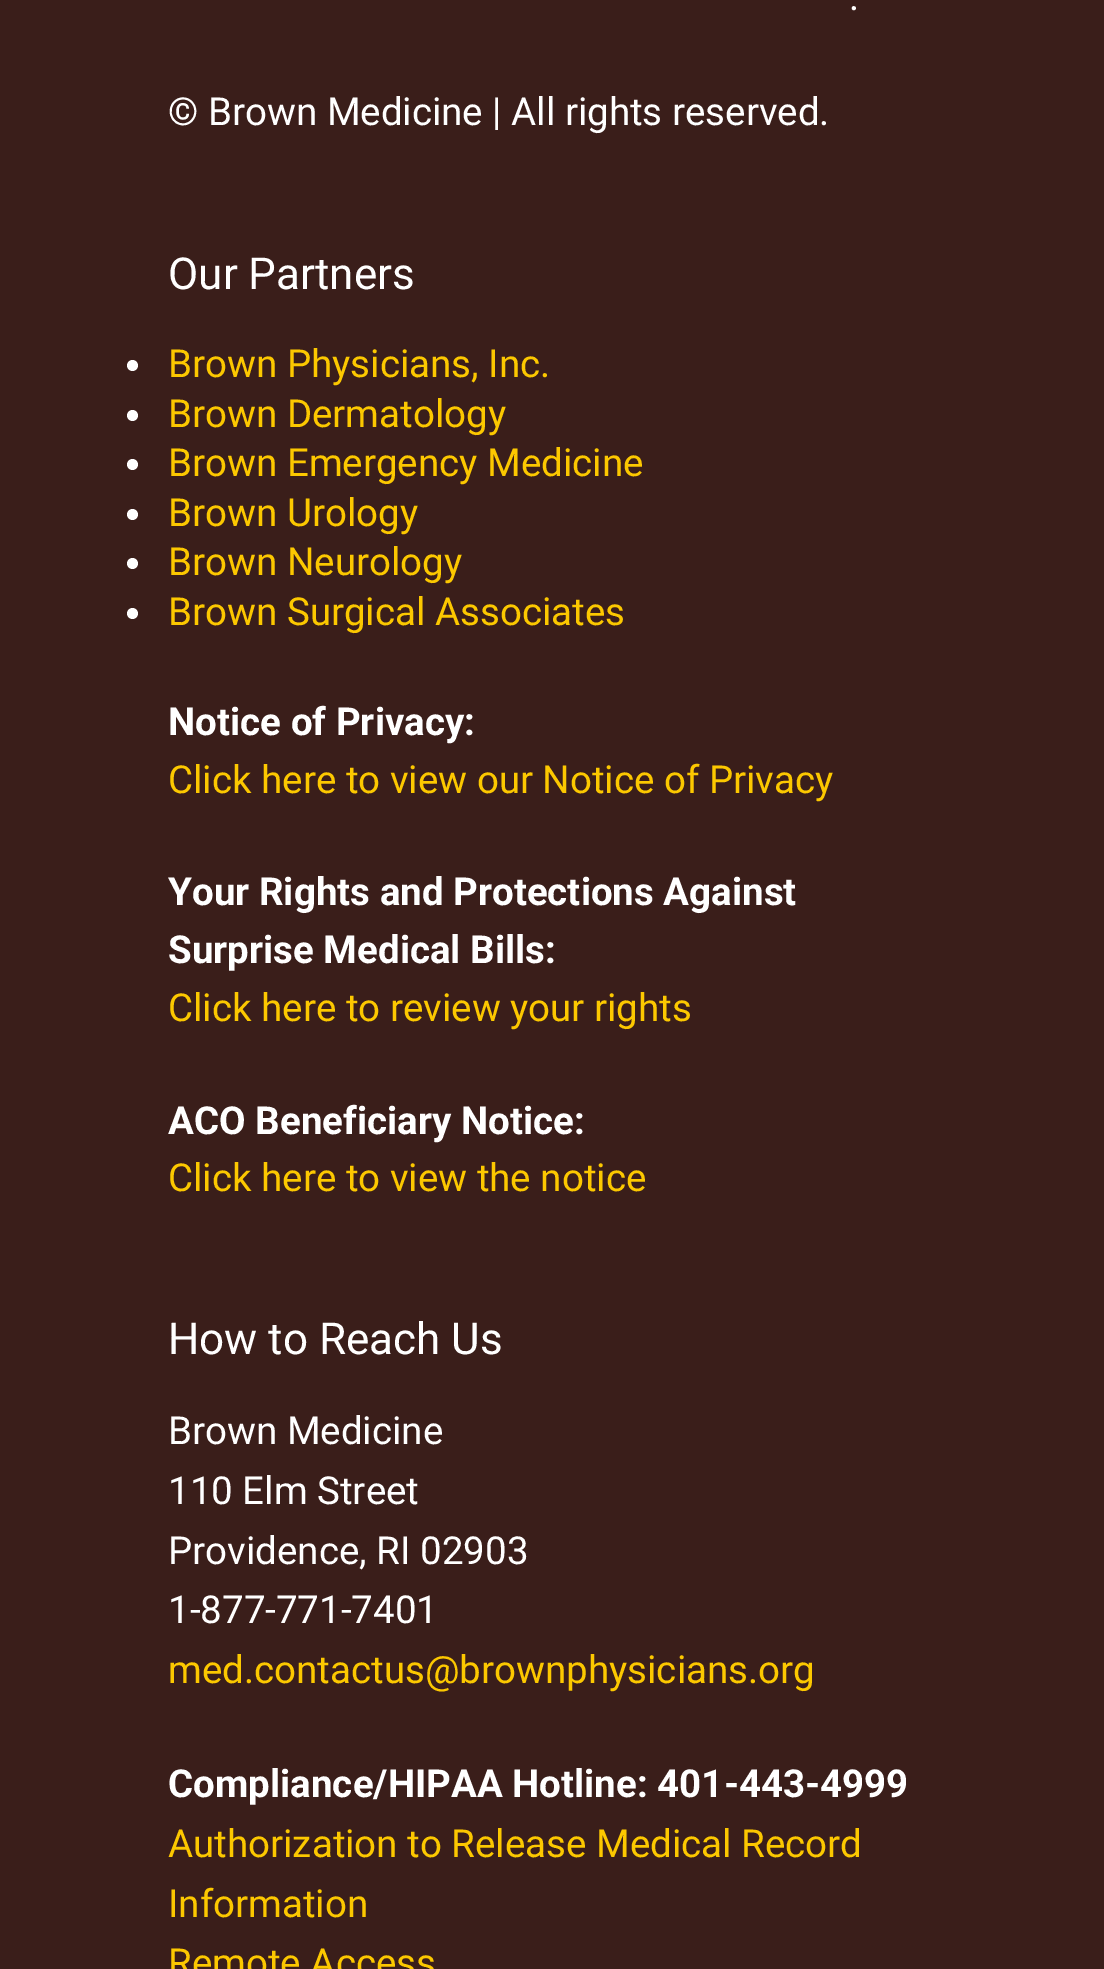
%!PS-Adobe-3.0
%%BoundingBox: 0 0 1104 1969
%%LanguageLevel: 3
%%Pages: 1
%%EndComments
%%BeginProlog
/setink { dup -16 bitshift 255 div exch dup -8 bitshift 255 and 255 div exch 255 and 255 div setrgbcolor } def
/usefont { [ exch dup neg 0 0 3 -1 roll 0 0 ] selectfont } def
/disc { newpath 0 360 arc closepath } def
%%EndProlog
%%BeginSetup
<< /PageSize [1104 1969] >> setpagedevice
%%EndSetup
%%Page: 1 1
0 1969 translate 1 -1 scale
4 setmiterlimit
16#3A1E1A setink
0 0 1104 1969 rectfill
/Roboto-Regular 38.5 usefont
16#FFFFFF setink
849 10 moveto (.) show
168 125 moveto (© Brown Medicine | All rights reserved.) show
/Roboto-Regular 44 usefont
168 289 moveto (Our Partners) show
132.5 365.5 5.5 disc fill
/Roboto-Regular 38.5 usefont
16#FCC800 setink
168 377 moveto (Brown Physicians, Inc.) show
16#FFFFFF setink
132.5 415.5 5.5 disc fill
16#FCC800 setink
168 427 moveto (Brown Dermatology) show
16#FFFFFF setink
132.5 464.5 5.5 disc fill
16#FCC800 setink
168 476 moveto (Brown Emergency Medicine) show
16#FFFFFF setink
132.5 514.5 5.5 disc fill
16#FCC800 setink
168 526 moveto (Brown Urology) show
16#FFFFFF setink
132.5 563.5 5.5 disc fill
16#FCC800 setink
168 575 moveto (Brown Neurology) show
16#FFFFFF setink
132.5 613.5 5.5 disc fill
16#FCC800 setink
168 625 moveto (Brown Surgical Associates) show
/Roboto-Bold 38.5 usefont
16#FFFFFF setink
168 735 moveto (Notice of Privacy:) show
/Roboto-Regular 38.5 usefont
16#FCC800 setink
168 793 moveto (Click here to view our Notice of Privacy) show
/Roboto-Bold 38.5 usefont
16#FFFFFF setink
168 905 moveto (Your Rights and Protections Against) show
168 963 moveto (Surprise Medical Bills:) show
/Roboto-Regular 38.5 usefont
16#FCC800 setink
168 1021 moveto (Click here to review your rights) show
/Roboto-Bold 38.5 usefont
16#FFFFFF setink
168 1134 moveto (ACO Beneficiary Notice:) show
/Roboto-Regular 38.5 usefont
16#FCC800 setink
168 1191 moveto (Click here to view the notice) show
/Roboto-Regular 44 usefont
16#FFFFFF setink
168 1354 moveto (How to Reach Us) show
/Roboto-Regular 38.5 usefont
[
    [(Brown Medicine) 168 1444]
    [(110 Elm Street) 168 1504]
    [(Providence, RI 02903) 168 1564]
    [(1-877-771-7401) 168 1623]
] { aload pop moveto show } forall
16#FCC800 setink
168 1683 moveto (med.contactus@brownphysicians.org) show
/Roboto-Bold 38.5 usefont
16#FFFFFF setink
168 1797 moveto (Compliance/HIPAA Hotline: 401-443-4999) show
/Roboto-Regular 38.5 usefont
16#FCC800 setink
[
    [(Authorization to Release Medical Record) 168 1857]
    [(Information) 168 1917]
    [(Remote Access) 168 1976]
] { aload pop moveto show } forall
showpage
%%EOF
